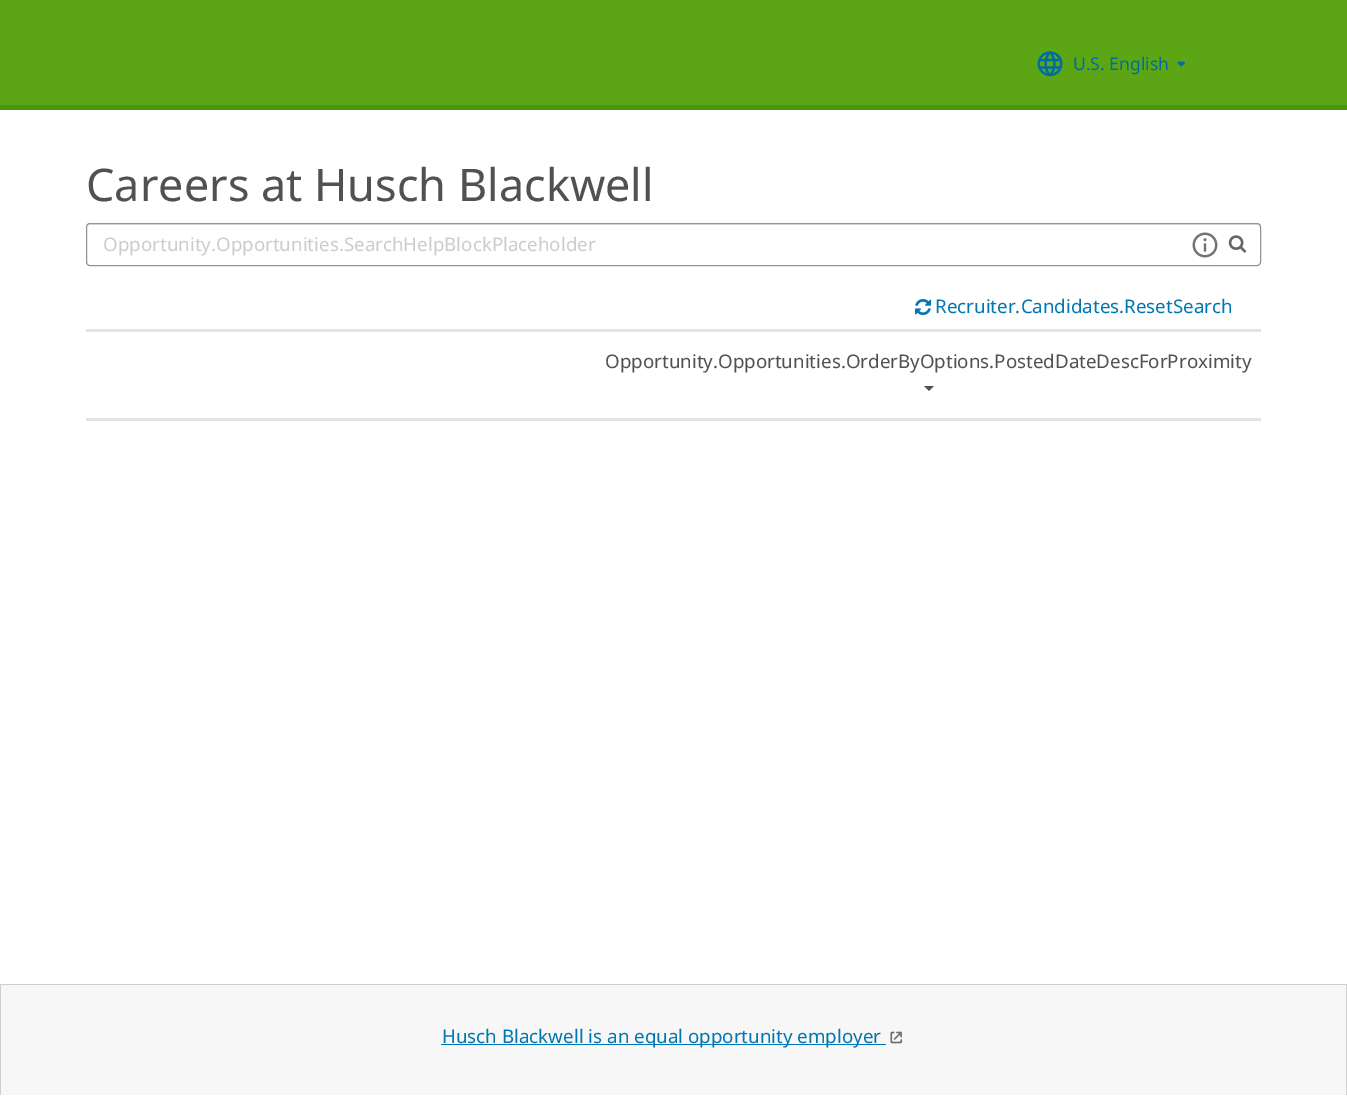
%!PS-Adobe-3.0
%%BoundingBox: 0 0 1347 1096
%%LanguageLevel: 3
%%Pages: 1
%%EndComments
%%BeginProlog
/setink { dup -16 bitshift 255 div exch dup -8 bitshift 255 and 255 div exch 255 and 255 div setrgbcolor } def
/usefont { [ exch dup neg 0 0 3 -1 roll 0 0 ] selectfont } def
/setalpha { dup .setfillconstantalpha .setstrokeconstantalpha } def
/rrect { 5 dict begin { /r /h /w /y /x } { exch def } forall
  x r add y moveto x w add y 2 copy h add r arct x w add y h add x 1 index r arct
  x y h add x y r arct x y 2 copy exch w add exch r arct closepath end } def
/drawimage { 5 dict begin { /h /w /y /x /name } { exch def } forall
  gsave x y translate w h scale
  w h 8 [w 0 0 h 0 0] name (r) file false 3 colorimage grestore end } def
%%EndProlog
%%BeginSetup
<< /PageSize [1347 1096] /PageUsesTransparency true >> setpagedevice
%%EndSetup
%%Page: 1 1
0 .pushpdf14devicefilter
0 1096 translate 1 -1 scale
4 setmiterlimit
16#FFFFFF setink
0 0 1347 1096 rectfill
16#5CA616 setink
0 0 1347 105 rectfill
16#4B9510 setink
0 105 1347 5 rectfill
(img1.raw) 1037 51 26 26 drawimage
/NotoSans-Regular 17.5 usefont
16#016CA2 setink
1073 70 moveto (U.S. English) show
(img2.raw) 1177 61 8 6 drawimage
/NotoSans-Regular 45 usefont
16#515151 setink
86 201 moveto (Careers at Husch Blackwell) show
16#ECECEC setink
90 225 moveto 1258 225 lineto 1259 225 1260 226 1260 228 curveto 1260 226 1260 224 1258 224 curveto 90 224 lineto 88 224 88 226 88 228 curveto 88 226 89 225 90 225 curveto closepath fill
0.42 setalpha
16#000000 setink
86.5 223.5 1174 42 3.5 rrect stroke
/NotoSans-Regular 18.75 usefont
1 setalpha
16#CCCCCC setink
103 251 moveto (Opportunity.Opportunities.SearchHelpBlockPlaceholder) show
(img3.raw) 1192 232 26 26 drawimage
(img4.raw) 1228 235 19 18 drawimage
(img5.raw) 915 299 17 17 drawimage
16#0176B2 setink
935 313 moveto (Recruiter.Candidates.ResetSearch) show
16#E3E3E3 setink
86 329 1175 3 rectfill
86 418 1175 3 rectfill
16#515151 setink
605 368 moveto (Opportunity.Opportunities.OrderByOptions.PostedDateDescForProximity) show
924 386 moveto 934 386 lineto 929 391 lineto closepath fill
[
    [1 985 1345 110 16#F7F7F7]
    [0 984 1347 1 16#CFCFCF]
    [1346 984 1 111 16#CFCFCF]
    [0 984 1 111 16#CFCFCF]
    [441 1044 445 1 16#0176B2]
] { aload pop setink rectfill } forall
442 1043 moveto (Husch Blackwell is an equal opportunity employer) show
(img6.raw) 890 1031 13 13 drawimage
.poppdf14devicefilter showpage
%%EOF
